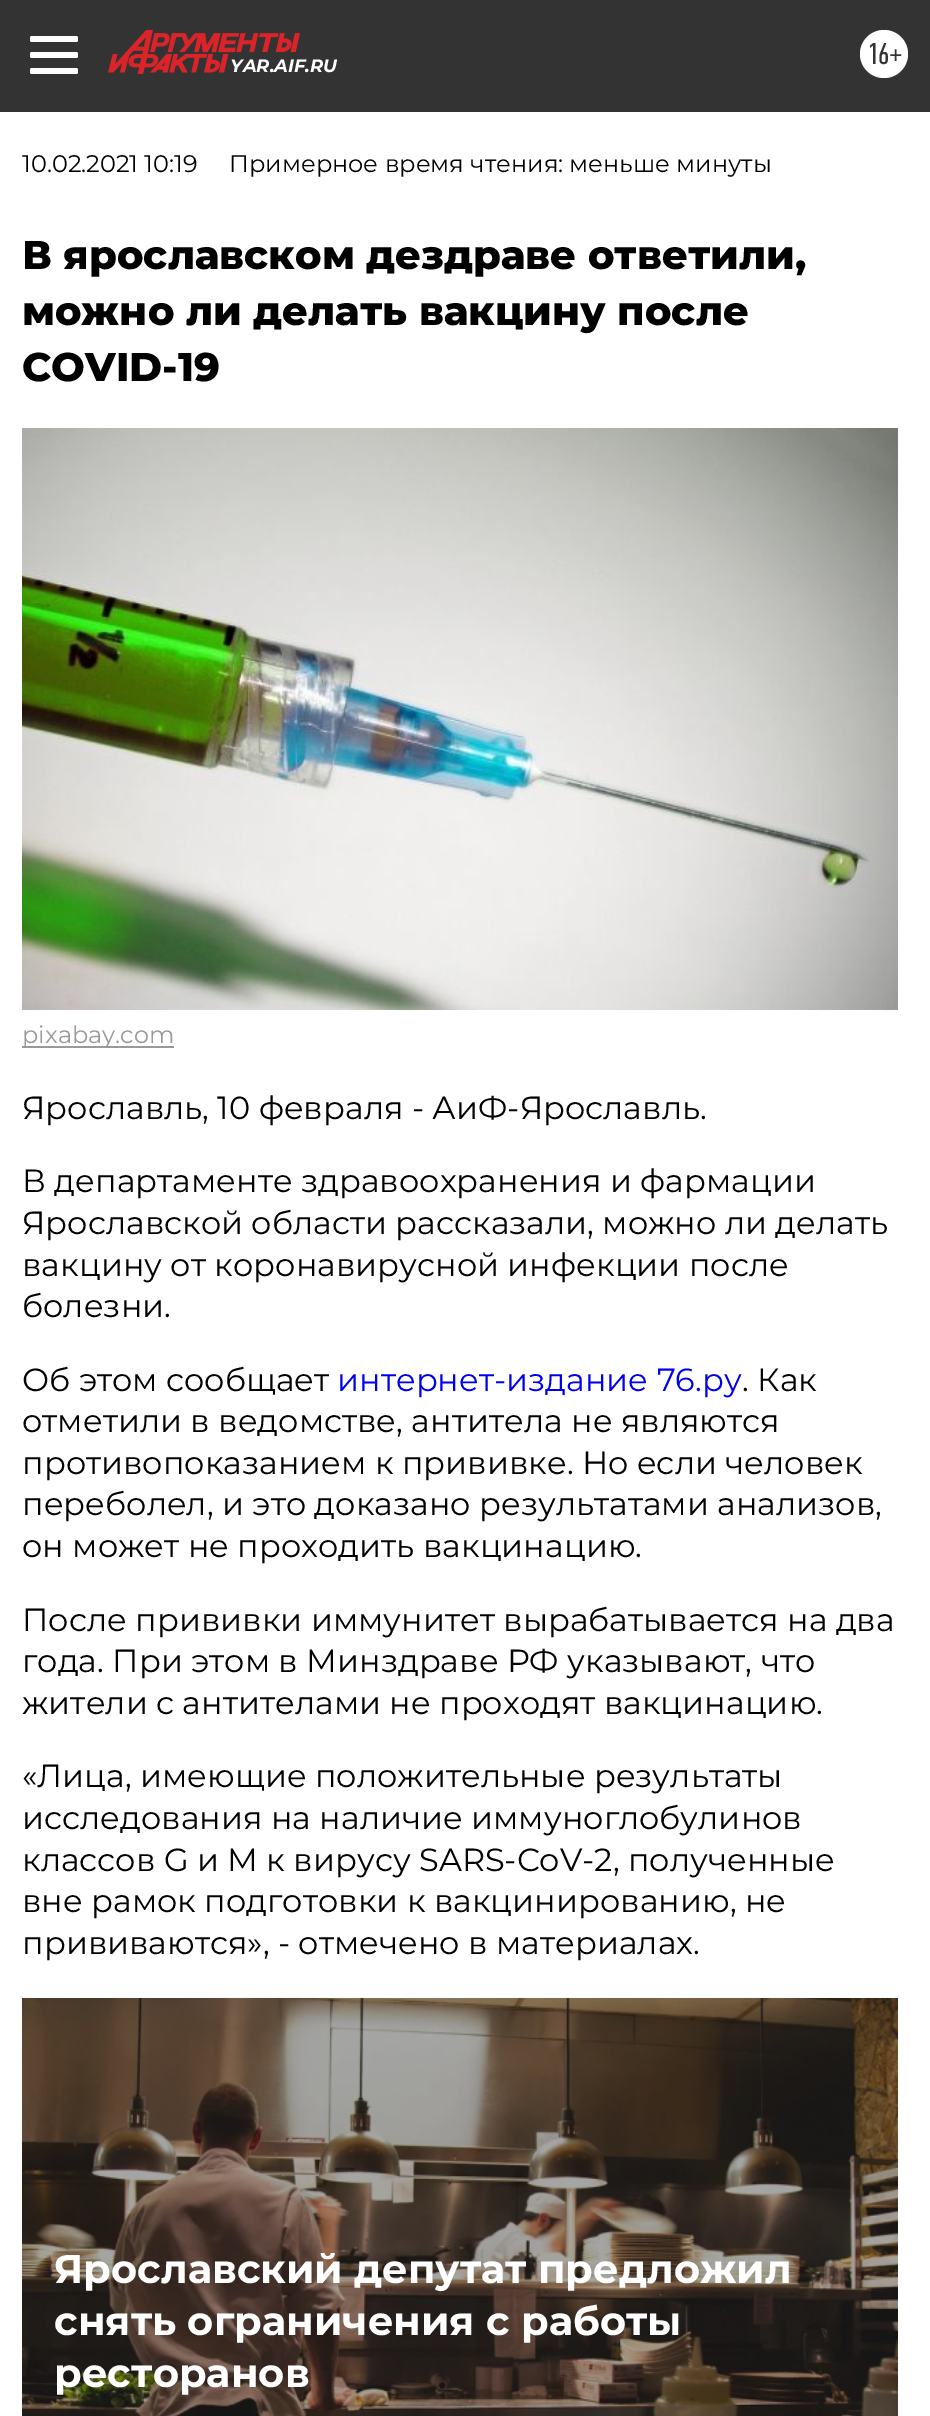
%!PS-Adobe-3.0
%%BoundingBox: 0 0 930 2416
%%LanguageLevel: 3
%%Pages: 1
%%EndComments
%%BeginProlog
/setink { dup -16 bitshift 255 div exch dup -8 bitshift 255 and 255 div exch 255 and 255 div setrgbcolor } def
/usefont { [ exch dup neg 0 0 3 -1 roll 0 0 ] selectfont } def
/disc { newpath 0 360 arc closepath } def
/rrect { 5 dict begin { /r /h /w /y /x } { exch def } forall
  x r add y moveto x w add y 2 copy h add r arct x w add y h add x 1 index r arct
  x y h add x y r arct x y 2 copy exch w add exch r arct closepath end } def
/drawimage { 5 dict begin { /h /w /y /x /name } { exch def } forall
  gsave x y translate w h scale
  w h 8 [w 0 0 h 0 0] name (r) file false 3 colorimage grestore end } def
%%EndProlog
%%BeginSetup
<< /PageSize [930 2416] >> setpagedevice
%%EndSetup
%%Page: 1 1
0 2416 translate 1 -1 scale
4 setmiterlimit
16#FFFFFF setink
0 0 930 2416 rectfill
16#333333 setink
0 0 930 112 rectfill
16#FFFFFF setink
30 36 48 6 2 rrect fill
30 52 48 6 2 rrect fill
30 68 48 6 2 rrect fill
(img1.raw) 108 30 192 44 drawimage
/Montserrat-BoldItalic 18 usefont
230 72 moveto (YAR.AIF.RU) show
884 54 24 disc fill
/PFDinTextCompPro-Regular 30 usefont
16#333333 setink
867 64 moveto (16+) show
/Montserrat-Regular 24 usefont
16#000000 setink
22 172 moveto (10.02.2021 10:19) show
229 172 moveto (Примерное время чтения: меньше минуты) show
/Montserrat-ExtraBold 40 usefont
[
    [(В ярославском дездраве ответили,) 22 269]
    [(можно ли делать вакцину после) 22 325]
    [(COVID-19) 22 381]
] { aload pop moveto show } forall
(img2.raw) 22 428 876 582 drawimage
16#999999 setink
22 1046 152 2 rectfill
/Montserrat-Regular 24 usefont
22 1043 moveto (pixabay.com) show
/Montserrat-Regular 32 usefont
16#000000 setink
[
    [(Ярославль, 10 февраля - АиФ-Ярославль.) 22 1119]
    [(В департаменте здравоохранения и фармации) 22 1192]
    [(Ярославской области рассказали, можно ли делать) 22 1234]
    [(вакцину от коронавирусной инфекции после) 22 1276]
    [(болезни.) 22 1317]
    [(Об этом сообщает) 22 1391]
] { aload pop moveto show } forall
16#0000EE setink
337 1391 moveto (интернет-издание 76.ру) show
16#000000 setink
[
    [(. Как) 742 1391]
    [(отметили в ведомстве, антитела не являются) 22 1432]
    [(противопоказанием к прививке. Но если человек) 22 1474]
    [(переболел, и это доказано результатами анализов,) 22 1515]
    [(он может не проходить вакцинацию.) 22 1557]
    [(После прививки иммунитет вырабатывается на два) 22 1631]
    [(года. При этом в Минздраве РФ указывают, что) 22 1672]
    [(жители с антителами не проходят вакцинацию.) 22 1714]
    [(«Лица, имеющие положительные результаты) 22 1787]
    [(исследования на наличие иммуноглобулинов) 22 1829]
    [(классов G и М к вирусу SARS-СоV-2, полученные) 22 1871]
    [(вне рамок подготовки к вакцинированию, не) 22 1912]
    [(прививаются», - отмечено в материалах.) 22 1954]
] { aload pop moveto show } forall
(img3.raw) 22 1998 876 418 drawimage
/Montserrat-Bold 40 usefont
16#FFFFFF setink
[
    [(Ярославский депутат предложил) 54 2283]
    [(снять ограничения с работы) 54 2335]
    [(ресторанов) 54 2387]
] { aload pop moveto show } forall
showpage
%%EOF
